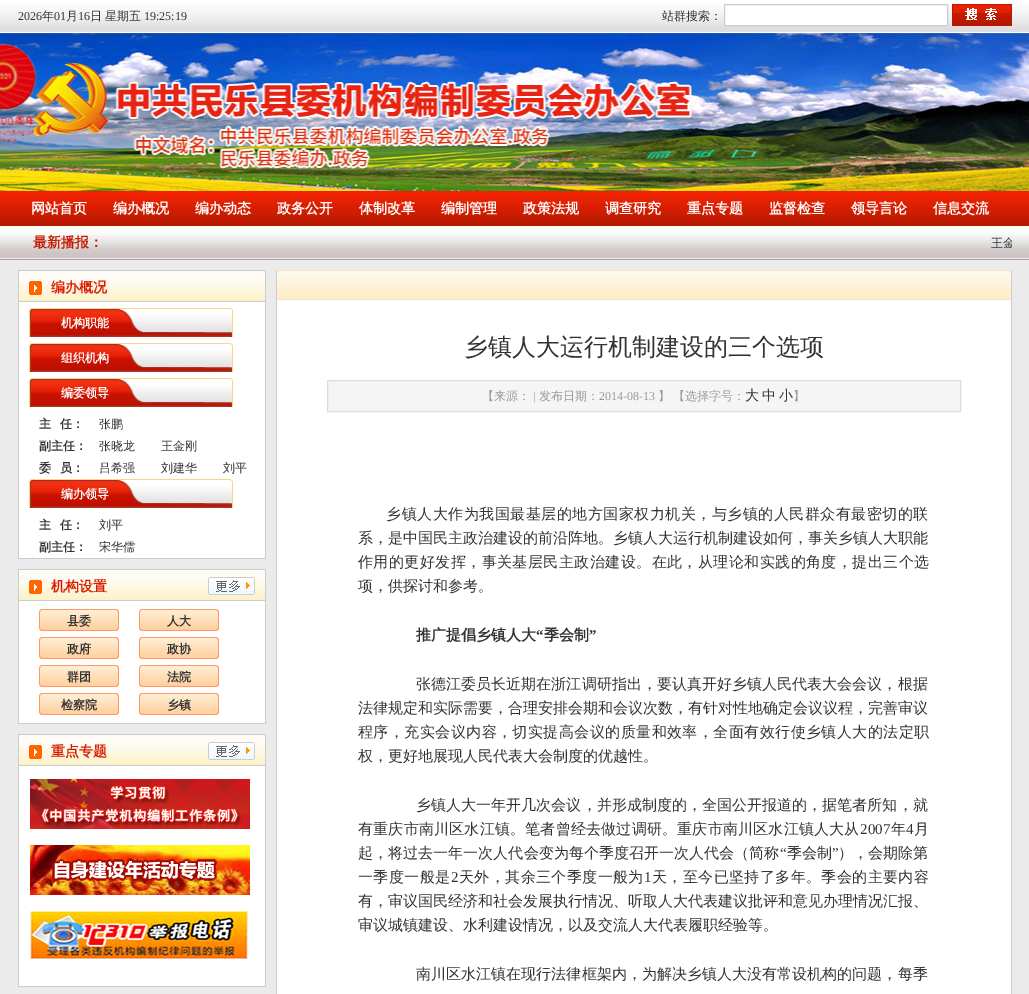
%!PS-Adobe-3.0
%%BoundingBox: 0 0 1029 994
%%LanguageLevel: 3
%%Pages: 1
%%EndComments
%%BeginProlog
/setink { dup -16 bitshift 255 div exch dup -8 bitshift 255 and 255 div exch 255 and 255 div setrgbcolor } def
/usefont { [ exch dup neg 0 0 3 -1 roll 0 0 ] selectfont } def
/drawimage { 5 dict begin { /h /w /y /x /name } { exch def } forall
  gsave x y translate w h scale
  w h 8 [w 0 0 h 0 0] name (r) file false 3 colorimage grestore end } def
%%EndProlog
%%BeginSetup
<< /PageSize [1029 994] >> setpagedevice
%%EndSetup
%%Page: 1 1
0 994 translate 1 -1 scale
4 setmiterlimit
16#EBEBEB setink
0 0 1029 994 rectfill
(img1.raw) 0 0 1029 260 drawimage
/LiberationSerif-Regular 12 usefont
16#333333 setink
18 20 moveto (2026) show
/WenQuanYiZenHei-Medium 12 usefont
42 20 moveto (年) show
/LiberationSerif-Regular 12 usefont
54 20 moveto (01) show
/WenQuanYiZenHei-Medium 12 usefont
66 20 moveto (月) show
/LiberationSerif-Regular 12 usefont
78 20 moveto (16) show
/WenQuanYiZenHei-Medium 12 usefont
90 20 moveto -1 0 32 (日 星期五) widthshow
/LiberationSerif-Regular 12 usefont
144 20 moveto (19:25:19) show
/WenQuanYiZenHei-Medium 12 usefont
662 20 moveto (站群搜索：) show
16#FFFFFF setink
724.5 4.5 moveto 947.5 4.5 lineto 947.5 25.5 lineto 724.5 25.5 lineto closepath gsave fill grestore
16#CCCCCC setink
stroke
(img2.raw) 952 4 60 22 drawimage
/WenQuanYiZenHei-Bold 14 usefont
16#FFFFFF setink
[
    [(网站首页) 31 213]
    [(编办概况) 113 213]
    [(编办动态) 195 213]
    [(政务公开) 277 213]
    [(体制改革) 359 213]
    [(编制管理) 441 213]
    [(政策法规) 523 213]
    [(调查研究) 605 213]
    [(重点专题) 687 213]
    [(监督检查) 769 213]
    [(领导言论) 851 213]
    [(信息交流) 933 213]
] { aload pop moveto show } forall
16#C41B01 setink
33 247 moveto (最新播报：) show
gsave
118 226 894 34 rectclip
/WenQuanYiZenHei-Medium 12 usefont
16#333333 setink
991 247 moveto (王金) show
grestore
[
    [19 302 246 256 16#FFFFFF]
    [265 270 1 289 16#CCCCCC]
    [18 558 248 1 16#CCCCCC]
    [18 270 1 289 16#CCCCCC]
] { aload pop setink rectfill } forall
(img3.raw) 19 270 246 32 drawimage
16#DA1D01 setink
51 292 moveto (编办概况) show
(img4.raw) 29 308 204 29 drawimage
/WenQuanYiZenHei-Bold 12 usefont
16#FFFFFF setink
61 327 moveto (机构职能) show
(img4.raw) 29 343 204 29 drawimage
61 362 moveto (组织机构) show
(img4.raw) 29 378 204 29 drawimage
61 397 moveto (编委领导) show
16#333333 setink
39 428 moveto (主) show
60 428 moveto (任：) show
/WenQuanYiZenHei-Medium 12 usefont
99 428 moveto (张鹏) show
/WenQuanYiZenHei-Bold 12 usefont
39 450 moveto (副主任：) show
/WenQuanYiZenHei-Medium 12 usefont
99 450 moveto (张晓龙) show
161 450 moveto (王金刚) show
/WenQuanYiZenHei-Bold 12 usefont
39 472 moveto (委) show
60 472 moveto (员：) show
/WenQuanYiZenHei-Medium 12 usefont
[
    [(吕希强) 99 472]
    [(刘建华) 161 472]
    [(刘平) 223 472]
] { aload pop moveto show } forall
(img4.raw) 29 479 204 29 drawimage
/WenQuanYiZenHei-Bold 12 usefont
16#FFFFFF setink
61 498 moveto (编办领导) show
16#333333 setink
39 529 moveto (主) show
60 529 moveto (任：) show
/WenQuanYiZenHei-Medium 12 usefont
99 529 moveto (刘平) show
/WenQuanYiZenHei-Bold 12 usefont
39 551 moveto (副主任：) show
/WenQuanYiZenHei-Medium 12 usefont
99 551 moveto (宋华儒) show
[
    [19 601 246 122 16#FFFFFF]
    [265 569 1 155 16#CCCCCC]
    [18 723 248 1 16#CCCCCC]
    [18 569 1 155 16#CCCCCC]
] { aload pop setink rectfill } forall
(img3.raw) 19 569 246 32 drawimage
/WenQuanYiZenHei-Bold 14 usefont
16#DA1D01 setink
51 591 moveto (机构设置) show
(img5.raw) 208 577 47 18 drawimage
(img6.raw) 39 609 80 22 drawimage
/WenQuanYiZenHei-Bold 12 usefont
16#333333 setink
67 625 moveto (县委) show
(img6.raw) 139 609 80 22 drawimage
167 625 moveto (人大) show
(img6.raw) 39 637 80 22 drawimage
67 653 moveto (政府) show
(img6.raw) 139 637 80 22 drawimage
167 653 moveto (政协) show
(img6.raw) 39 665 80 22 drawimage
67 681 moveto (群团) show
(img6.raw) 139 665 80 22 drawimage
167 681 moveto (法院) show
(img6.raw) 39 693 80 22 drawimage
61 709 moveto (检察院) show
(img6.raw) 139 693 80 22 drawimage
167 709 moveto (乡镇) show
[
    [19 766 246 220 16#FFFFFF]
    [265 734 1 253 16#CCCCCC]
    [18 986 248 1 16#CCCCCC]
    [18 734 1 253 16#CCCCCC]
] { aload pop setink rectfill } forall
(img3.raw) 19 734 246 32 drawimage
/WenQuanYiZenHei-Bold 14 usefont
16#DA1D01 setink
51 756 moveto (重点专题) show
(img5.raw) 208 742 47 18 drawimage
(img7.raw) 30 779 220 50 drawimage
(img8.raw) 30 845 220 50 drawimage
(img9.raw) 30 911 218 48 drawimage
[
    [277 300 734 694 16#FFFFFF]
    [1011 270 1 724 16#CCCCCC]
    [276 270 1 724 16#CCCCCC]
] { aload pop setink rectfill } forall
(img10.raw) 277 270 734 30 drawimage
/WenQuanYiZenHei-Medium 24 usefont
16#333333 setink
464 355 moveto (乡镇人大运行机制建设的三个选项) show
16#F5F5F5 setink
327.5 380.5 moveto 960.5 380.5 lineto 960.5 411.5 lineto 327.5 411.5 lineto closepath gsave fill grestore
16#DDDDDD setink
stroke
/WenQuanYiZenHei-Medium 12 usefont
16#999999 setink
482 400 moveto (【来源：) show
/LiberationSerif-Regular 12 usefont
533 400 moveto (|) show
/WenQuanYiZenHei-Medium 12 usefont
539 400 moveto (发布日期：) show
/LiberationSerif-Regular 12 usefont
599 400 moveto (2014-08-13) show
/WenQuanYiZenHei-Medium 12 usefont
658 400 moveto (】) show
673 400 moveto (【选择字号：) show
/WenQuanYiZenHei-Medium 14 usefont
16#333333 setink
[
    [(大) 745 400]
    [(中) 762 400]
    [(小) 779 400]
] { aload pop moveto show } forall
/WenQuanYiZenHei-Medium 12 usefont
16#999999 setink
793 400 moveto (】) show
/WenQuanYiZenHei-Medium 15 usefont
16#333333 setink
386 519 moveto 0.5 0 (乡镇人大作为我国最基层的地方国家权力机关，与乡镇的人民群众有最密切的联) ashow
358 543 moveto (系，是中国民主政治建设的前沿阵地。乡镇人大运行机制建设如何，事关乡镇人大职能) show
358 567 moveto 0.45 0 (作用的更好发挥，事关基层民主政治建设。在此，从理论和实践的角度，提出三个选) ashow
358 591 moveto (项，供探讨和参考。) show
/WenQuanYiZenHei-Bold 15 usefont
416 640 moveto (推广提倡乡镇人大) show
/LiberationSerif-Bold 15 usefont
536 640 moveto (“) show
/WenQuanYiZenHei-Bold 15 usefont
544 640 moveto (季会制) show
/LiberationSerif-Bold 15 usefont
589 640 moveto (”) show
/WenQuanYiZenHei-Medium 15 usefont
416 689 moveto 0.05 0 (张德江委员长近期在浙江调研指出，要认真开好乡镇人民代表大会会议，根据) ashow
358 713 moveto (法律规定和实际需要，合理安排会期和会议次数，有针对性地确定会议议程，完善审议) show
358 737 moveto 0.45 0 (程序，充实会议内容，切实提高会议的质量和效率，全面有效行使乡镇人大的法定职) ashow
358 761 moveto (权，更好地展现人民代表大会制度的优越性。) show
416 810 moveto 0.05 0 (乡镇人大一年开几次会议，并形成制度的，全国公开报道的，据笔者所知，就) ashow
358 834 moveto 0.2 0 (有重庆市南川区水江镇。笔者曾经去做过调研。重庆市南川区水江镇人大从) ashow
/LiberationSerif-Regular 15 usefont
860 834 moveto 0.2 0 (2007) ashow
/WenQuanYiZenHei-Medium 15 usefont
891 834 moveto 0.2 0 (年) ashow
/LiberationSerif-Regular 15 usefont
906 834 moveto 0.2 0 (4) ashow
/WenQuanYiZenHei-Medium 15 usefont
914 834 moveto 0.2 0 (月) ashow
358 858 moveto 0.05 0 (起，将过去一年一次人代会变为每个季度召开一次人代会（简称) ashow
/LiberationSerif-Regular 15 usefont
780 858 moveto 0.05 0 (“) ashow
/WenQuanYiZenHei-Medium 15 usefont
787 858 moveto 0.05 0 (季会制) ashow
/LiberationSerif-Regular 15 usefont
832 858 moveto 0.05 0 (”) ashow
/WenQuanYiZenHei-Medium 15 usefont
838 858 moveto 0.05 0 (），会期除第) ashow
358 882 moveto 0.4 0 (一季度一般是) ashow
/LiberationSerif-Regular 15 usefont
451 882 moveto 0.4 0 (2) ashow
/WenQuanYiZenHei-Medium 15 usefont
459 882 moveto 0.4 0 (天外，其余三个季度一般为) ashow
/LiberationSerif-Regular 15 usefont
644 882 moveto 0.4 0 (1) ashow
/WenQuanYiZenHei-Medium 15 usefont
652 882 moveto 0.4 0 (天，至今已坚持了多年。季会的主要内容) ashow
358 906 moveto (有，审议国民经济和社会发展执行情况、听取人大代表建议批评和意见办理情况汇报、) show
358 930 moveto (审议城镇建设、水利建设情况，以及交流人大代表履职经验等。) show
416 979 moveto 0.05 0 (南川区水江镇在现行法律框架内，为解决乡镇人大没有常设机构的问题，每季) ashow
showpage
%%EOF
